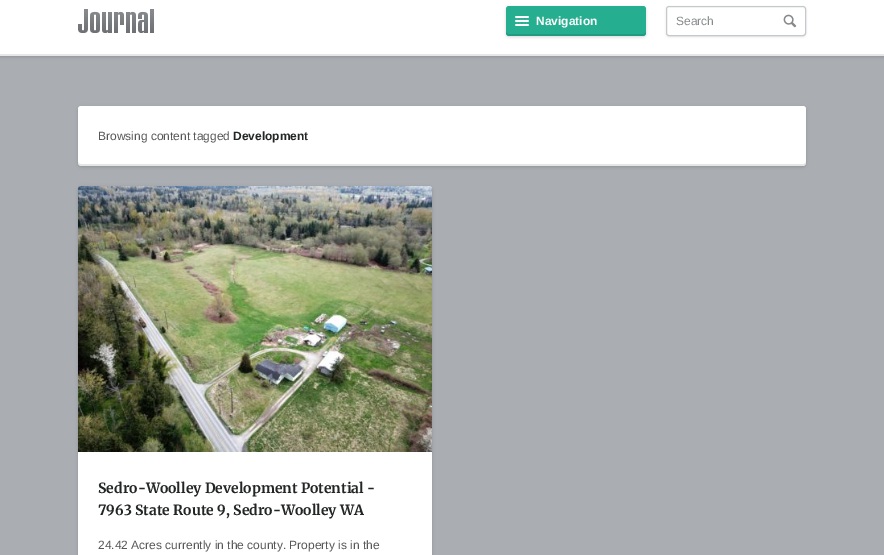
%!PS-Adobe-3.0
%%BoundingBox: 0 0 884 555
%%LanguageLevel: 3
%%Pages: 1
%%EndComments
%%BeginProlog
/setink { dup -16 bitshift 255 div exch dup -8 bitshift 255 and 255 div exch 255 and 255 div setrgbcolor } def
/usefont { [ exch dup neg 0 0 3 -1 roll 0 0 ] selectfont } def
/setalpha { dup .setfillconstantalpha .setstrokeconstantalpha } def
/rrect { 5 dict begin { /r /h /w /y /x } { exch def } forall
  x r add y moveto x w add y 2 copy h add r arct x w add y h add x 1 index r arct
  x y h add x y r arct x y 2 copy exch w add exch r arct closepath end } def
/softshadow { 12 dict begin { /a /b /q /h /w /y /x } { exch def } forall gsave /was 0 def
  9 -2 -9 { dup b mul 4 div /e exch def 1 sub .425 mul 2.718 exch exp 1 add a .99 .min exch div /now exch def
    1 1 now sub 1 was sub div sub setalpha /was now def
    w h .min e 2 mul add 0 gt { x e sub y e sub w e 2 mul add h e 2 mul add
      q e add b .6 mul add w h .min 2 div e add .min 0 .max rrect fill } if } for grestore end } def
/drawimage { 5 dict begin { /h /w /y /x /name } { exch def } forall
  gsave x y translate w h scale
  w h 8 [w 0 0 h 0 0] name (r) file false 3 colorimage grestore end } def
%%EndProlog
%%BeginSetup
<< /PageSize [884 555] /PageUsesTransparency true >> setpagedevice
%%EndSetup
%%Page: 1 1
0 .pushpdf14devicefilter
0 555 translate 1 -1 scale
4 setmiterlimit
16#AAAEB3 setink
0 0 884 555 rectfill
16#000000 setink
0 1 884 56 0 1.5 0.15 softshadow
16#FFFFFF setink
0 0 884 54 rectfill
16#E6E6E6 setink
0 54 884 2 rectfill
(img1.raw) 78 9 76 24 drawimage
16#000000 setink
506 7 140 30 3 1.5 0.15 softshadow
16#26AE90 setink
506 6 140 30 3 rrect fill
0.1 setalpha
16#000000 setink
506 31 moveto 506 33 lineto 506 35 507 36 509 36 curveto 643 36 lineto 645 36 646 35 646 33 curveto 646 31 lineto 646 33 645 34 643 34 curveto 509 34 lineto 507 34 506 33 506 31 curveto closepath fill
1 setalpha
(img2.raw) 515 16 14 10 drawimage
/LiberationSans-Bold 12 usefont
16#FFFFFF setink
536 25 moveto (Navigation) show
16#000000 setink
666 7 140 30 3 1 0.1 softshadow
16#FFFFFF setink
666.5 6.5 139 29 2.5 rrect gsave fill grestore
16#C6C9CC setink
stroke
/LiberationSans-Regular 12 usefont
16#87898C setink
676 25 moveto (Search) show
(img3.raw) 783 14 14 14 drawimage
16#000000 setink
78 107 728 60 3 1.5 0.15 softshadow
16#FFFFFF setink
78 106 728 60 3 rrect fill
0.1 setalpha
16#000000 setink
78 161 moveto 78 163 lineto 78 165 79 166 81 166 curveto 803 166 lineto 805 166 806 165 806 163 curveto 806 161 lineto 806 163 805 164 803 164 curveto 81 164 lineto 79 164 78 163 78 161 curveto closepath fill
1 setalpha
16#575757 setink
98 140 moveto (Browsing content tagged) show
/LiberationSans-Bold 12 usefont
16#242626 setink
233 140 moveto (Development) show
16#000000 setink
78 187 354 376 3 1.5 0.15 softshadow
16#FFFFFF setink
78 186 354 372 3 rrect fill
(img4.raw) 78 186 354 266 drawimage
/Merriweather-Bold 14 usefont
16#242626 setink
98 493 moveto (Sedro-Woolley Development Potential -) show
98 515 moveto (7963 State Route 9, Sedro-Woolley WA) show
/LiberationSans-Regular 12 usefont
16#575757 setink
98 549 moveto (24.42 Acres currently in the county. Property is in the) show
.poppdf14devicefilter showpage
%%EOF
